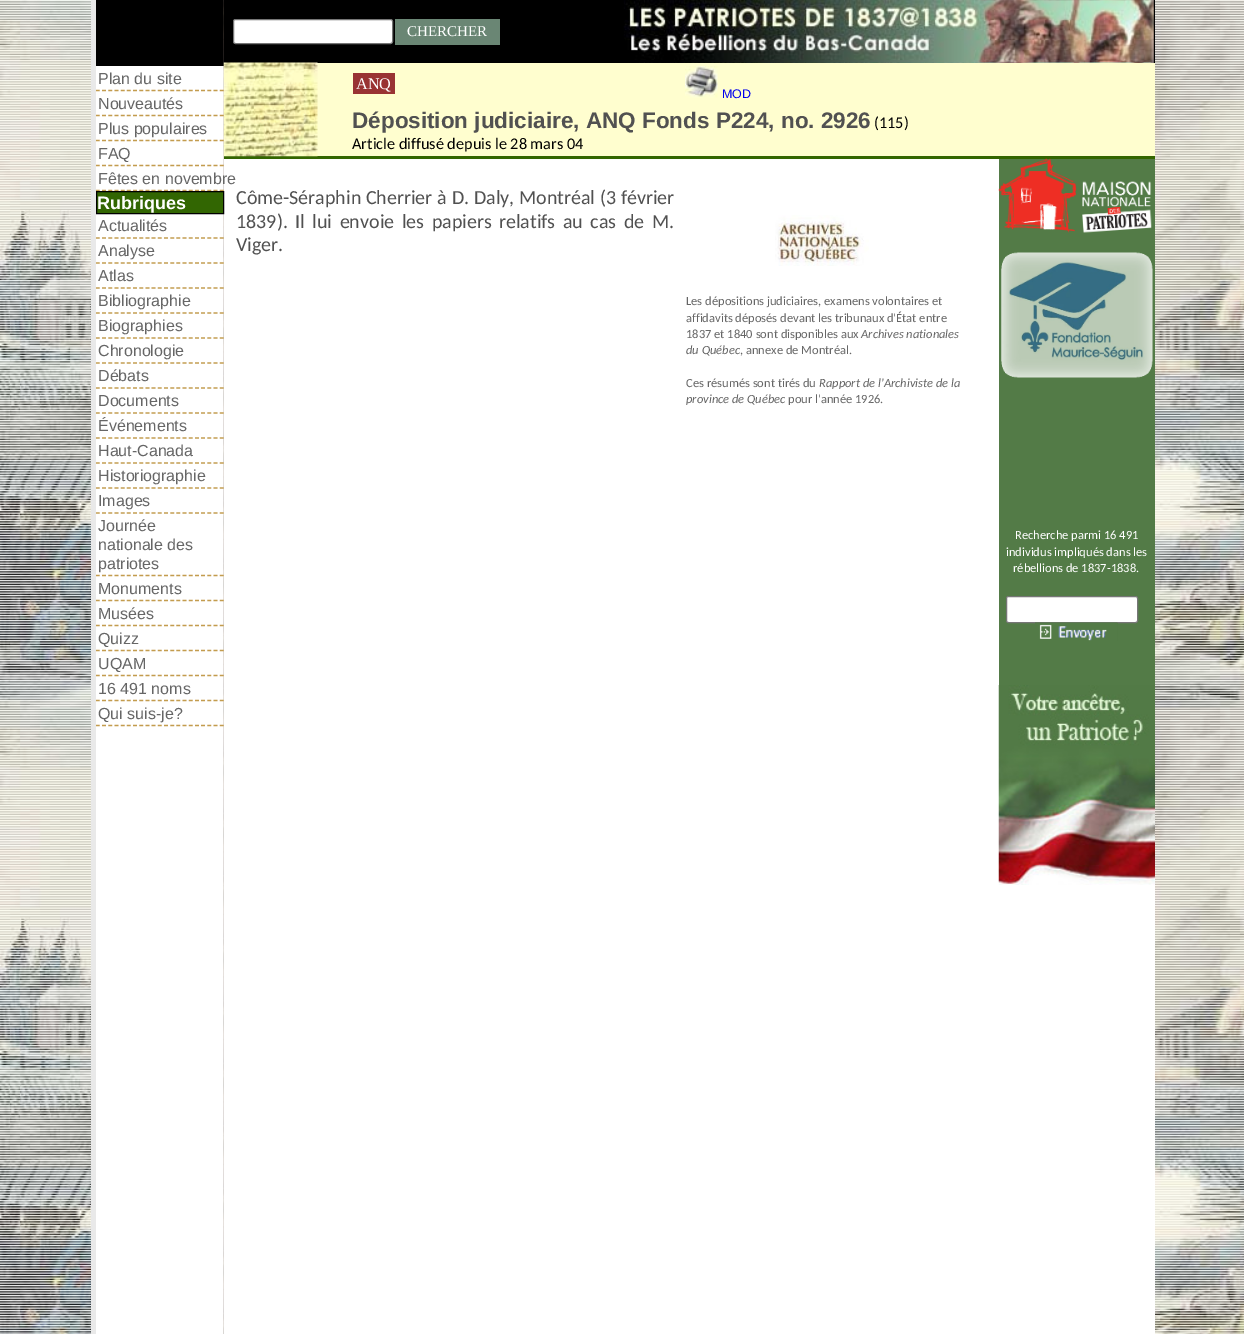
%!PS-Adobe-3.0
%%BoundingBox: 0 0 1244 1334
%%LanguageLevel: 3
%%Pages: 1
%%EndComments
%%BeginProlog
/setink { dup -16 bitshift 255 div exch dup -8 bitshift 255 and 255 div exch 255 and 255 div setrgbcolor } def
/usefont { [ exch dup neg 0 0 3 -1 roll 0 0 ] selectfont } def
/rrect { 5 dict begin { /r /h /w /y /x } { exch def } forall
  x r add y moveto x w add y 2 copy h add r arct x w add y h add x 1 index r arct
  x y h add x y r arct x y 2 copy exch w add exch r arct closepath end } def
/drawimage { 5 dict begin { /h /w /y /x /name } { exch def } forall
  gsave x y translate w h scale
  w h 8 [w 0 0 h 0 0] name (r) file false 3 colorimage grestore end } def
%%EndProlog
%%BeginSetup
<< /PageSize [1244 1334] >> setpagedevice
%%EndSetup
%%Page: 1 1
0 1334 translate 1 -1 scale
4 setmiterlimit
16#FFFFFF setink
0 0 1244 1334 rectfill
(img1.raw) 0 0 1244 1334 drawimage
[
    [96 66 128 1268 16#FFFFFF]
    [91 0 5 1334 16#E9E9E9]
    [96 0 128 66 16#000000]
] { aload pop setink rectfill } forall
(img2.raw) 223 0 931 1334 drawimage
16#FFFECF setink
317 63 838 93 rectfill
16#336600 setink
224 156 931 3 rectfill
(img3.raw) 223 62 95 95 drawimage
16#C39C4E setink
1.2 setlinewidth
[3.75 2.44] 0 setdash
96 90.5 moveto 224 90.5 lineto stroke
/LiberationSans-Regular 16 usefont
16#666666 setink
98 84 moveto (Plan du site) show
16#C39C4E setink
96 115.5 moveto 224 115.5 lineto stroke
16#666666 setink
98 109 moveto (Nouveautés) show
16#C39C4E setink
96 140.5 moveto 224 140.5 lineto stroke
16#666666 setink
98 134 moveto (Plus populaires) show
16#C39C4E setink
96 165.5 moveto 224 165.5 lineto stroke
16#666666 setink
98 159 moveto (FAQ) show
16#C39C4E setink
96 190.5 moveto 224 190.5 lineto stroke
16#FFFFFF setink
224 159 931 1175 rectfill
16#666666 setink
98 184 moveto (Fêtes en novembre) show
16#326602 setink
96.5 191.5 moveto 223.5 191.5 lineto 223.5 213.5 lineto 96.5 213.5 lineto closepath gsave fill grestore
16#000000 setink
1 setlinewidth
[] 0 setdash
stroke
/LiberationSans-Bold 18 usefont
16#FFFFFF setink
97 209 moveto (Rubriques) show
16#C39C4E setink
1.2 setlinewidth
[3.75 2.44] 0 setdash
96 238 moveto 224 238 lineto stroke
/LiberationSans-Regular 16 usefont
16#666666 setink
98 231 moveto (Actualités) show
16#C39C4E setink
96 263 moveto 224 263 lineto stroke
16#666666 setink
98 256 moveto (Analyse) show
16#C39C4E setink
96 288 moveto 224 288 lineto stroke
16#666666 setink
98 281 moveto (Atlas) show
16#C39C4E setink
96 313 moveto 224 313 lineto stroke
16#666666 setink
98 306 moveto (Bibliographie) show
16#C39C4E setink
96 338 moveto 224 338 lineto stroke
16#666666 setink
98 331 moveto (Biographies) show
16#C39C4E setink
96 363 moveto 224 363 lineto stroke
16#666666 setink
98 356 moveto (Chronologie) show
16#C39C4E setink
96 388 moveto 224 388 lineto stroke
16#666666 setink
98 381 moveto (Débats) show
16#C39C4E setink
96 413 moveto 224 413 lineto stroke
16#666666 setink
98 406 moveto (Documents) show
16#C39C4E setink
96 438 moveto 224 438 lineto stroke
16#666666 setink
98 431 moveto (Événements) show
16#C39C4E setink
96 463 moveto 224 463 lineto stroke
16#666666 setink
98 456 moveto (Haut-Canada) show
16#C39C4E setink
96 488 moveto 224 488 lineto stroke
16#666666 setink
98 481 moveto (Historiographie) show
16#C39C4E setink
96 513 moveto 224 513 lineto stroke
16#666666 setink
98 506 moveto (Images) show
16#C39C4E setink
96 575.5 moveto 224 575.5 lineto stroke
16#666666 setink
[
    [(Journée) 98 531]
    [(nationale des) 98 550]
    [(patriotes) 98 569]
] { aload pop moveto show } forall
16#C39C4E setink
96 600.5 moveto 224 600.5 lineto stroke
16#666666 setink
98 594 moveto (Monuments) show
16#C39C4E setink
96 625.5 moveto 224 625.5 lineto stroke
16#666666 setink
98 619 moveto (Musées) show
16#C39C4E setink
96 650.5 moveto 224 650.5 lineto stroke
16#666666 setink
98 644 moveto (Quizz) show
16#C39C4E setink
96 675.5 moveto 224 675.5 lineto stroke
16#666666 setink
98 669 moveto (UQAM) show
16#C39C4E setink
96 700.5 moveto 224 700.5 lineto stroke
16#666666 setink
98 694 moveto (16 491 noms) show
16#C39C4E setink
96 725.5 moveto 224 725.5 lineto stroke
16#666666 setink
98 719 moveto (Qui suis-je?) show
16#000000 setink
1154 0 1 63 rectfill
16#FFFFFF setink
233.5 19.5 159 24 2 rrect gsave fill grestore
16#767676 setink
1 setlinewidth
[] 0 setdash
stroke
16#6A8674 setink
395 19 105 26 rectfill
/LiberationSerif-Regular 15 usefont
16#FFFFFF setink
407 36 moveto (CHERCHER) show
16#993333 setink
353 73 42 21 rectfill
/LiberationSerif-Regular 16.25 usefont
16#FFFFFF setink
356 89 moveto (ANQ) show
(img4.raw) 685 66 33 32 drawimage
/LiberationSans-Regular 12.5 usefont
16#0000EE setink
722 98 moveto (MOD) show
/LiberationSans-Bold 22.5 usefont
16#515151 setink
352 128 moveto (Déposition judiciaire, ANQ Fonds P224, no. 2926) show
/Carlito-Regular 16.25 usefont
16#000000 setink
874 128 moveto (\(115\)) show
352 149 moveto (Article diffusé depuis le 28 mars 04) show
/Carlito-Regular 20 usefont
16#515151 setink
236 204 moveto 0.25 0 32 (Côme-Séraphin Cherrier à D. Daly, Montréal \(3 février) widthshow
236 228 moveto 3 0 32 (1839\). Il lui envoie les papiers relatifs au cas de M.) widthshow
236 251 moveto (Viger.) show
(img5.raw) 775 215 94 51 drawimage
/Carlito-Regular 12.5 usefont
16#666666 setink
[
    [(Les dépositions judiciaires, examens volontaires et) 686 305]
    [(affidavits déposés devant les tribunaux d'État entre) 686 322]
    [(1837 et 1840 sont disponibles aux) 686 338]
] { aload pop moveto show } forall
/Carlito-Italic 12.5 usefont
861 338 moveto (Archives nationales) show
686 354 moveto (du Québec) show
/Carlito-Regular 12.5 usefont
740 354 moveto (, annexe de Montréal.) show
686 387 moveto (Ces résumés sont tirés du) show
/Carlito-Italic 12.5 usefont
819 387 moveto (Rapport de l'Archiviste de la) show
686 403 moveto (province de Québec) show
/Carlito-Regular 12.5 usefont
788 403 moveto (pour l'année 1926.) show
16#537B47 setink
999 159 156 526 rectfill
(img6.raw) 998 158 154 75 drawimage
(img7.raw) 1001 252 152 126 drawimage
16#FFFFFF setink
[
    [(Recherche parmi 16 491) 1015 539]
    [(individus impliqués dans les) 1006 556]
    [(rébellions de 1837-1838.) 1013 572]
] { aload pop moveto show } forall
1006.5 596.5 131 26 2 rrect gsave fill grestore
16#767676 setink
stroke
(img8.raw) 1035 622 83 19 drawimage
(img9.raw) 998 685 157 200 drawimage
showpage
%%EOF
